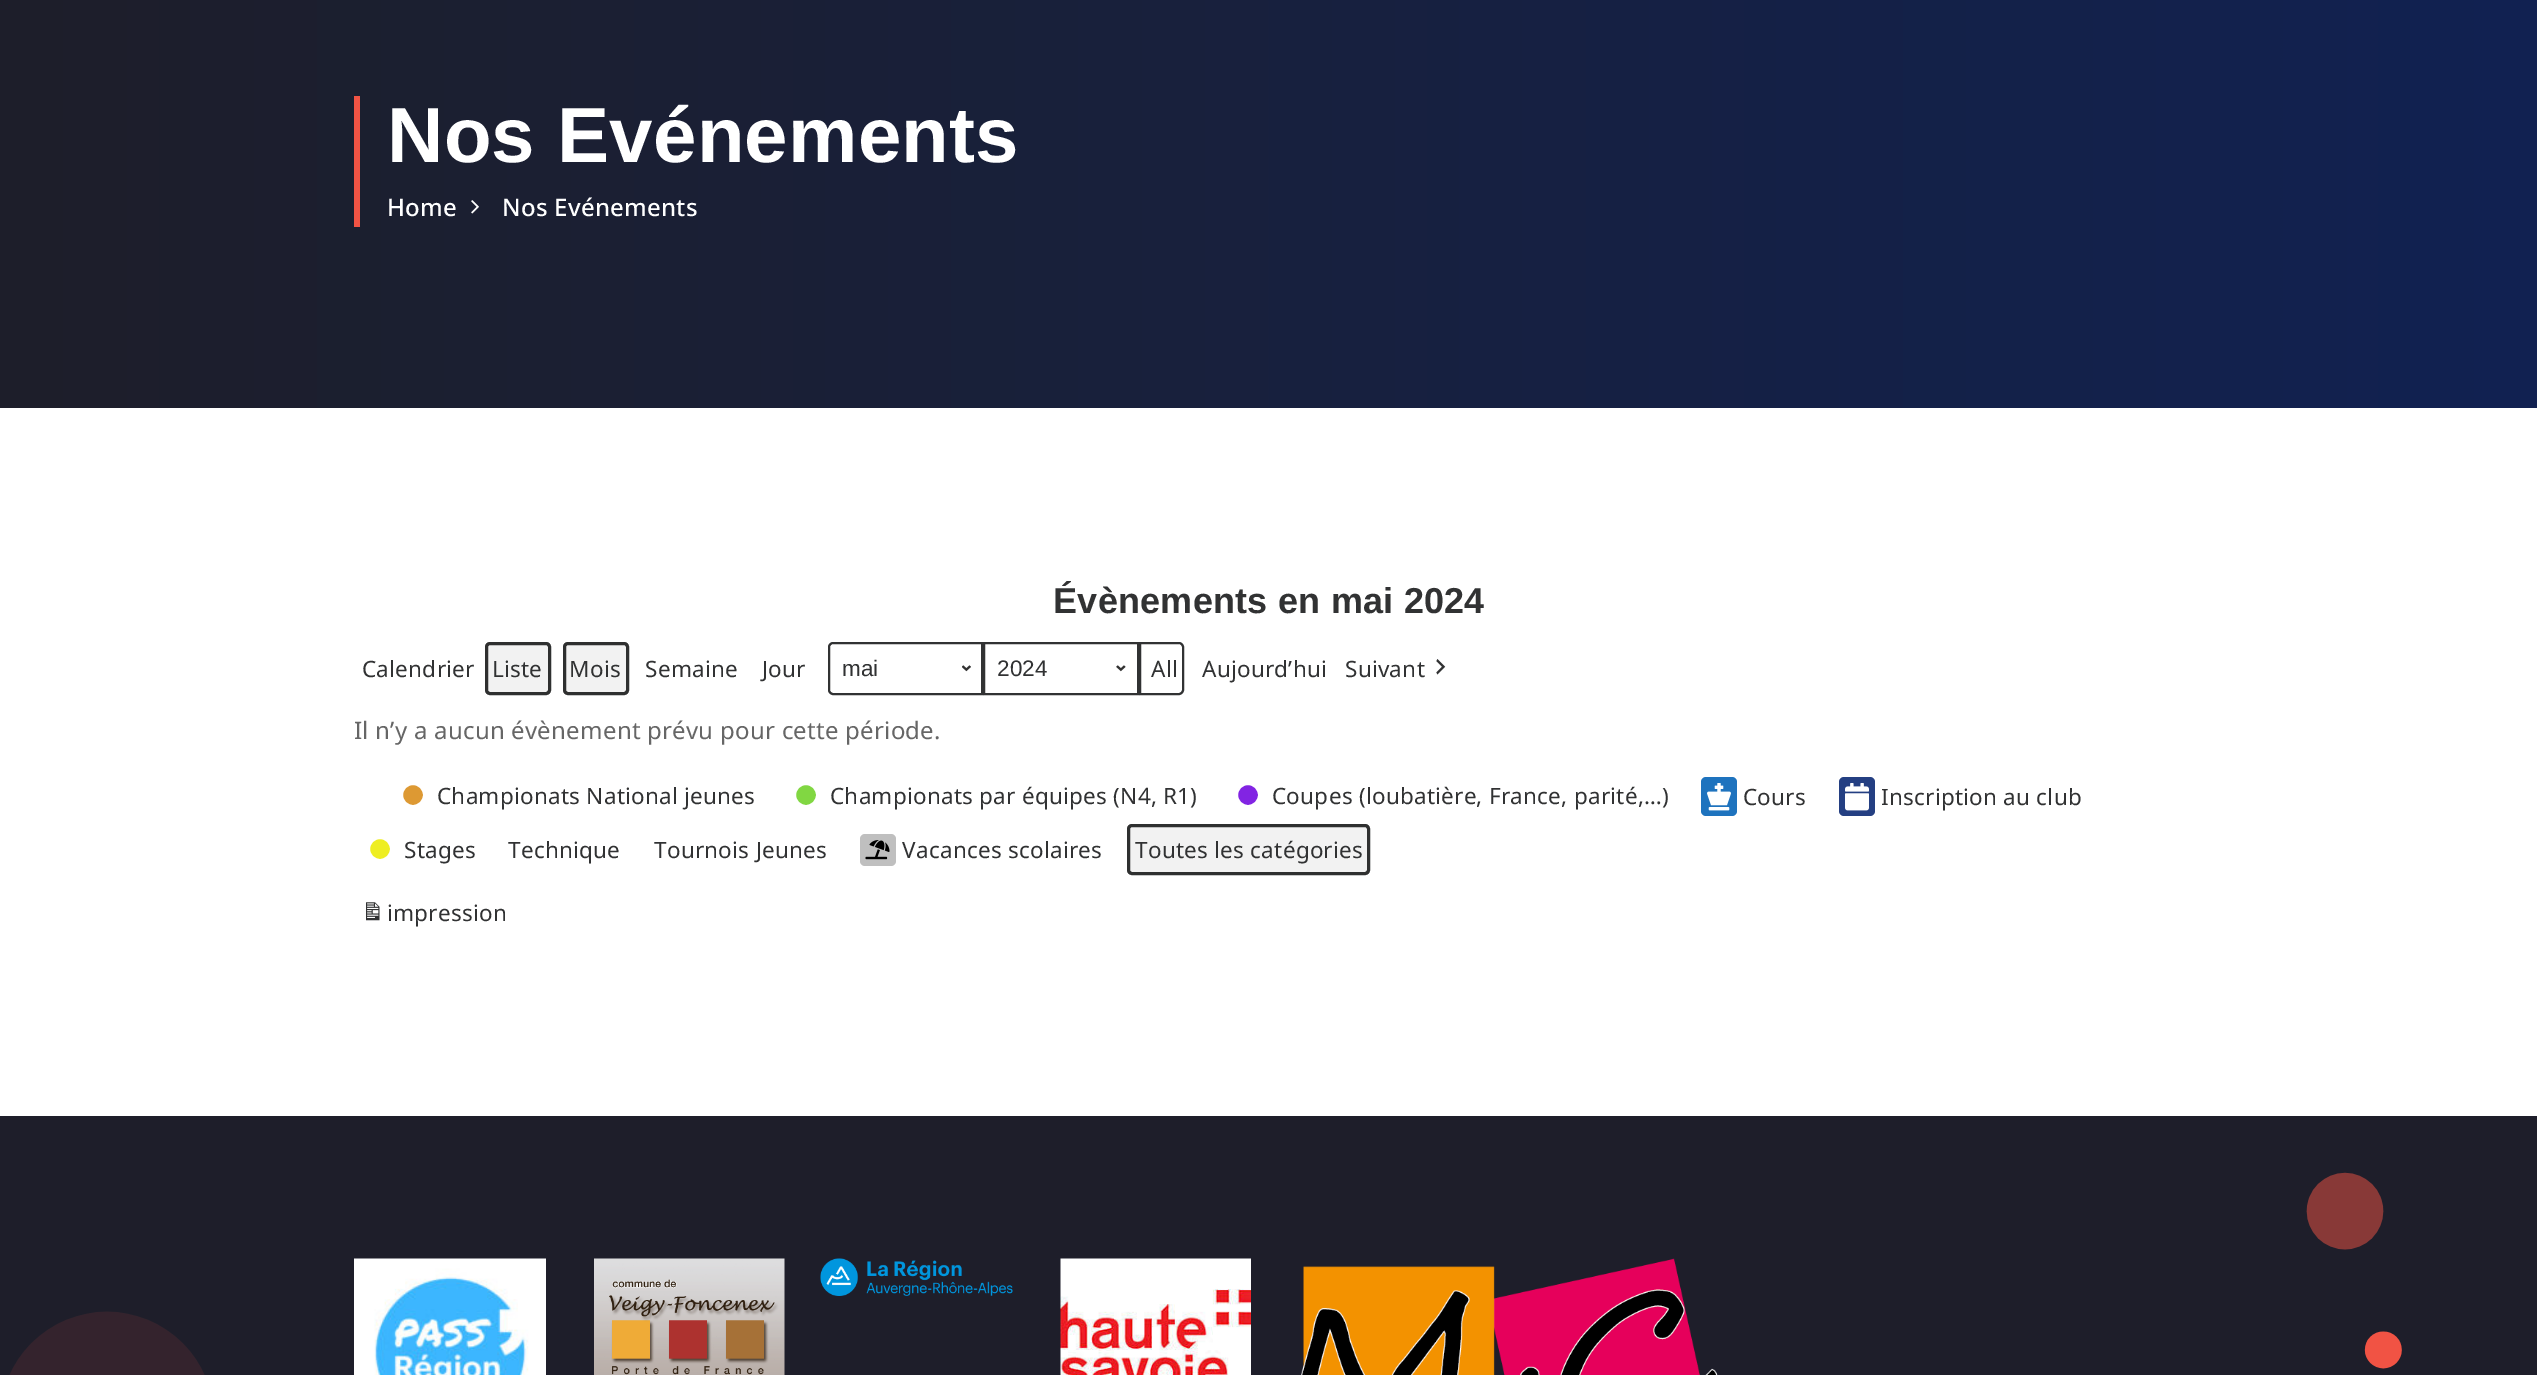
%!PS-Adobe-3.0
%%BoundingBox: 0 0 2537 1375
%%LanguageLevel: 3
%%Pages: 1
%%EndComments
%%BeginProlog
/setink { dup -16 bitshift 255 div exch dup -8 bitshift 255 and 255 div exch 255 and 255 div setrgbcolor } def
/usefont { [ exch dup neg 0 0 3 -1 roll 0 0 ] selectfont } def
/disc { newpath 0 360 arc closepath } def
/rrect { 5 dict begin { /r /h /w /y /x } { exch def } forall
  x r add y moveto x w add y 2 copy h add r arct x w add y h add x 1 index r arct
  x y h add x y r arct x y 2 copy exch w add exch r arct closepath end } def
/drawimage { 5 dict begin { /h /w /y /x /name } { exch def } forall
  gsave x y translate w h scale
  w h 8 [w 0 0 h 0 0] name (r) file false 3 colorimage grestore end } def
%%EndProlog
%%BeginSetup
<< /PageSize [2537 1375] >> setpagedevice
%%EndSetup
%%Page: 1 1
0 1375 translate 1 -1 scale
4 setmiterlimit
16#FFFFFF setink
0 0 2537 1375 rectfill
gsave 0 0 moveto 2537 0 lineto 2537 408 lineto 0 408 lineto closepath clip newpath
<< /ShadingType 2 /ColorSpace /DeviceRGB /Coords [0 42 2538 42] /Extend [true true] /Function << /FunctionType 2 /Domain [0 1] /C0 [0.118 0.118 0.165] /C1 [0.067 0.133 0.322] /N 1 >> >> shfill grestore
16#F15344 setink
354 96 6 131 rectfill
/LiberationSans-Bold 78 usefont
16#FFFFFF setink
387 162 moveto 0.25 0 (Nos Evénements) ashow
/NotoSans-Medium 24 usefont
387 216 moveto 0.25 0 (Home) ashow
(img1.raw) 471 200 8 14 drawimage
502 216 moveto 0.25 0 (Nos Evénements) ashow
/LiberationSans-Bold 36 usefont
16#313233 setink
1053 613 moveto 0.25 0 (Évènements en mai 2024) ashow
/NotoSans-Regular 22.5 usefont
362 677 moveto 0.25 0 (Calendrier) ashow
16#F2F2F2 setink
485 642 66 53 5 rrect fill
16#2F3030 setink
3 setlinewidth
486.5 643.5 63 50 3.5 rrect stroke
16#313233 setink
492 677 moveto 0.25 0 (Liste) ashow
16#F2F2F2 setink
563 642 66 53 5 rrect fill
16#2F3030 setink
564.5 643.5 63 50 3.5 rrect stroke
16#313233 setink
569 677 moveto 0.25 0 (Mois) ashow
645 677 moveto 0.25 0 (Semaine) ashow
762 677 moveto 0.25 0 (Jour) ashow
(img2.raw) 962 665 9 7 drawimage
2 setlinewidth
833 643 moveto 982 643 lineto 982 694 lineto 833 694 lineto 831 694 829 692 829 690 curveto 829 647 lineto 829 645 831 643 833 643 curveto closepath stroke
/LiberationSans-Regular 22.5 usefont
842 676 moveto (mai) show
(img3.raw) 1116 665 10 7 drawimage
984 643 154 51 rectstroke
997 676 moveto (2024) show
1140 643 moveto 1179 643 lineto 1181 643 1183 645 1183 647 curveto 1183 690 lineto 1183 692 1181 694 1179 694 curveto 1140 694 lineto closepath stroke
/NotoSans-Regular 22.5 usefont
1151 677 moveto 0.5 0 (All) ashow
1202 677 moveto 0.25 0 (Aujourd’hui) ashow
1345 677 moveto 0.25 0 (Suivant) ashow
(img4.raw) 1436 659 10 16 drawimage
/NotoSans-Regular 24 usefont
16#666666 setink
354 739 moveto 0.25 0 (Il n’y a aucun évènement prévu pour cette période.) ashow
16#DD9933 setink
413 795 11 disc gsave fill grestore
16#FFFFFF setink
stroke
/NotoSans-Regular 22.5 usefont
16#313233 setink
437 804 moveto 0.25 0 (Championats National jeunes) ashow
16#81D742 setink
806 795 11 disc gsave fill grestore
16#FFFFFF setink
stroke
16#313233 setink
830 804 moveto 0.25 0 (Championats par équipes \(N4, R1\)) ashow
16#8224E3 setink
1248 795 11 disc gsave fill grestore
16#FFFFFF setink
stroke
16#313233 setink
1272 804 moveto 0.25 0 (Coupes \(loubatière, France, parité,…\)) ashow
16#1E73BE setink
1701 777 36 39 5 rrect fill
(img5.raw) 1707 783 24 28 drawimage
16#313233 setink
1743 805 moveto 0.25 0 (Cours) ashow
16#243F82 setink
1839 777 36 39 5 rrect fill
(img6.raw) 1845 783 24 28 drawimage
16#313233 setink
1881 805 moveto 0.25 0 (Inscription au club) ashow
16#EEEE22 setink
380 849 11 disc gsave fill grestore
16#FFFFFF setink
stroke
16#313233 setink
404 858 moveto 0.25 0 (Stages) ashow
508 858 moveto 0.25 0 (Technique) ashow
654 858 moveto 0.25 0 (Tournois Jeunes) ashow
16#BFBFBF setink
860 834 36 32 5 rrect fill
(img7.raw) 865 840 25 20 drawimage
16#313233 setink
902 858 moveto 0.25 0 (Vacances scolaires) ashow
16#F2F2F2 setink
1127 824 243 51 5 rrect fill
16#2F3030 setink
3 setlinewidth
1128.5 825.5 240 48 3.5 rrect stroke
16#313233 setink
1135 858 moveto 0.25 0 (Toutes les catégories) ashow
(img8.raw) 366 902 14 19 drawimage
387 921 moveto 0.25 0 (impression) ashow
16#1E1E2A setink
0 1116 2537 259 rectfill
(img9.raw) 9 1172 2393 203 drawimage
(img10.raw) 354 1258 192 117 drawimage
(img11.raw) 594 1258 191 117 drawimage
(img12.raw) 820 1258 193 38 drawimage
(img13.raw) 1060 1258 191 117 drawimage
(img14.raw) 1301 1258 417 117 drawimage
showpage
%%EOF
